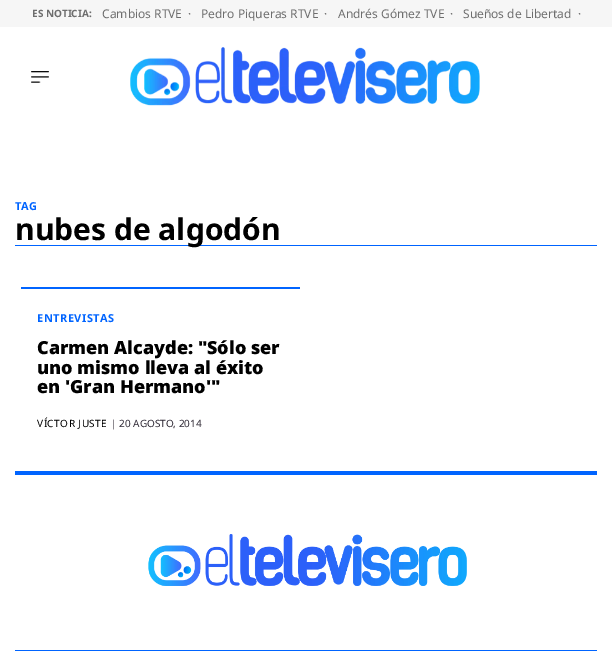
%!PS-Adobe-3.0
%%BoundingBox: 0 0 612 669
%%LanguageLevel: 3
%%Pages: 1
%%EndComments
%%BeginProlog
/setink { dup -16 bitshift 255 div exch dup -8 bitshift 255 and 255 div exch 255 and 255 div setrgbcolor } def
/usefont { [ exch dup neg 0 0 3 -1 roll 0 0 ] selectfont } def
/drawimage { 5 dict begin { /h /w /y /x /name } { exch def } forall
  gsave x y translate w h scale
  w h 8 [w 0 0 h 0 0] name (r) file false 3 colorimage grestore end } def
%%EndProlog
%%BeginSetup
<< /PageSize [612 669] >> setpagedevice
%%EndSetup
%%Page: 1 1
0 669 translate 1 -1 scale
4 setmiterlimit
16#FFFFFF setink
0 0 612 669 rectfill
16#F6F6F6 setink
0 0 612 27 rectfill
/NotoSans-Bold 10 usefont
16#6E6E6E setink
32 17 moveto (ES NOTICIA:) show
/NotoSans-Regular 12 usefont
[
    [(Cambios RTVE) 102 18]
    [(·) 188 18]
    [(Pedro Piqueras RTVE) 201 18]
    [(·) 324 18]
    [(Andrés Gómez TVE) 338 18]
    [(·) 450 18]
    [(Sueños de Libertad) 463 18]
    [(·) 578 18]
] { aload pop moveto show } forall
(img1.raw) 31 71 18 12 drawimage
(img2.raw) 130 47 350 59 drawimage
16#0064FF setink
15 245 582 1 rectfill
/NotoSans-Bold 11 usefont
15 210 moveto (TAG) show
/NotoSans-Bold 30 usefont
16#000000 setink
15 240 moveto (nubes de algodón) show
16#0064FF setink
21 287 279 2 rectfill
/NotoSans-Bold 11 usefont
37 322 moveto 0.5 0 (ENTREVISTAS) ashow
/NotoSans-Black 18 usefont
16#000000 setink
[
    [(Carmen Alcayde: "Sólo ser) 37 354]
    [(uno mismo lleva al éxito) 37 374]
    [(en 'Gran Hermano'") 37 393]
] { aload pop moveto show } forall
/NotoSans-Regular 10 usefont
37 427 moveto 0.5 0 (VÍCTOR JUSTE) ashow
16#2D2733 setink
111 427 moveto (| 20 AGOSTO, 2014) show
16#0064FF setink
15 471 582 4 rectfill
15 650 582 1 rectfill
(img3.raw) 148 534 319 52 drawimage
showpage
%%EOF
